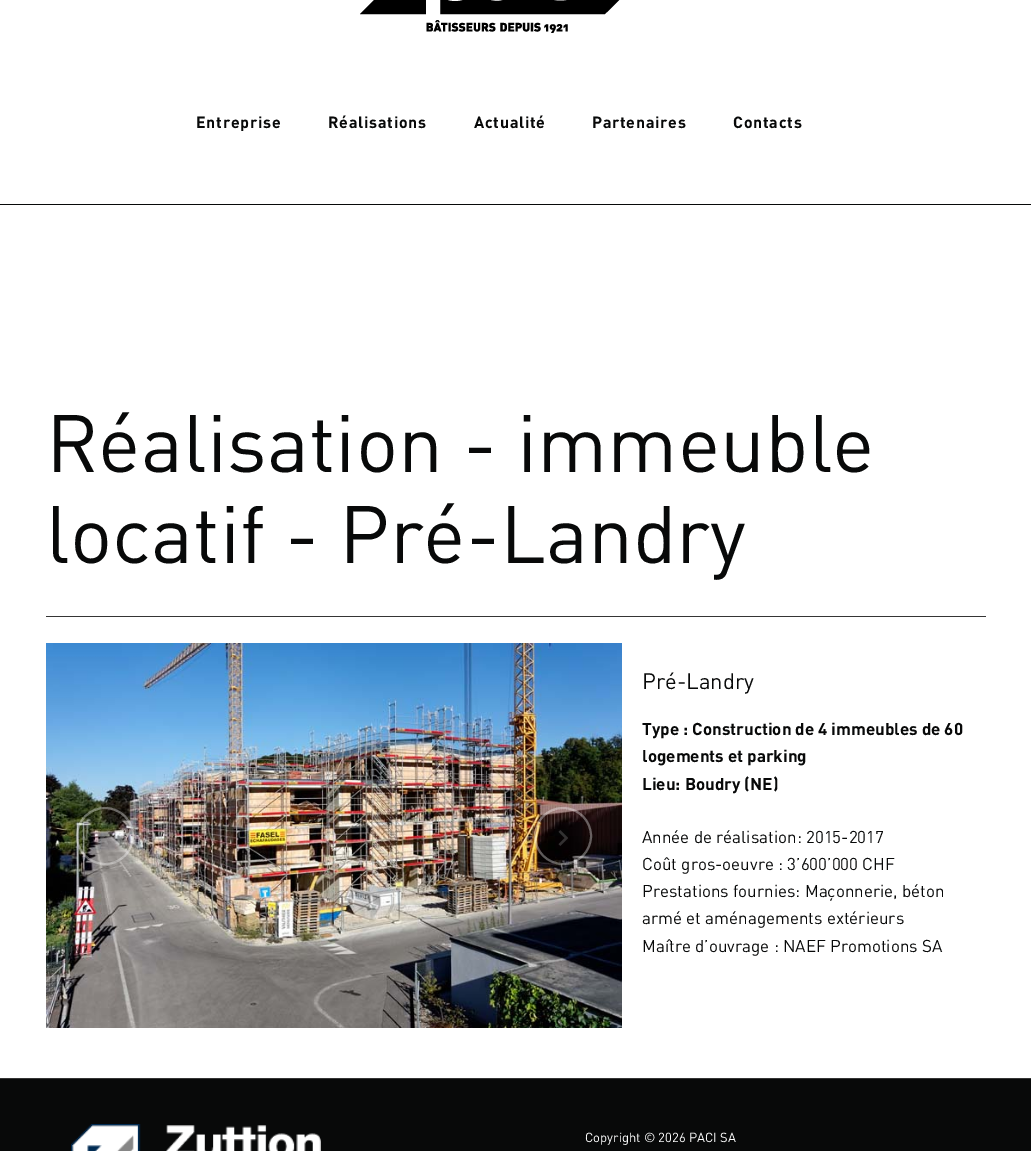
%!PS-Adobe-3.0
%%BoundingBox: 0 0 1031 1151
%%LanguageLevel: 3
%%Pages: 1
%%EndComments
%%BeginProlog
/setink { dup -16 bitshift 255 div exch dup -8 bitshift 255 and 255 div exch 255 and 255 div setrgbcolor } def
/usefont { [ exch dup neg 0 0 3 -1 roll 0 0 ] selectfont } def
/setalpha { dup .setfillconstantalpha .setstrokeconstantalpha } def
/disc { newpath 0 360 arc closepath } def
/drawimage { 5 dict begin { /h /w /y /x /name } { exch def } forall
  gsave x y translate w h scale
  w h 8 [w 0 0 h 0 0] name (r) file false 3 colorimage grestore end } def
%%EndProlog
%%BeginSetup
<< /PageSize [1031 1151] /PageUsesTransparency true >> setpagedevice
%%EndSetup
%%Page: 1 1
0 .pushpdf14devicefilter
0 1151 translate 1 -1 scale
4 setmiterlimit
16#FFFFFF setink
0 0 1031 1151 rectfill
16#080909 setink
0 204 1031 1 rectfill
(img1.raw) 360 0 260 33 drawimage
/DIN-Bold 16 usefont
196 128 moveto 0.75 0 (Entreprise) ashow
328 128 moveto 0.75 0 (Réalisations) ashow
474 128 moveto 0.75 0 (Actualité) ashow
592 128 moveto 0.75 0 (Partenaires) ashow
733 128 moveto 0.75 0 (Contacts) ashow
16#353535 setink
46 616 940 1 rectfill
/DIN-Regular 80 usefont
16#080909 setink
46 472 moveto (Réalisation - immeuble) show
46 563 moveto (locatif - Pré-Landry) show
(img2.raw) 46 643 576 385 drawimage
0.35 setalpha
16#FFFFFF setink
2 setlinewidth
105 836 28 disc stroke
1 setalpha
(img3.raw) 100 830 9 14 drawimage
0.35 setalpha
563 836 28 disc stroke
1 setalpha
(img4.raw) 558 830 10 16 drawimage
/DIN-Regular 22 usefont
16#080909 setink
642 689 moveto (Pré-Landry) show
/DIN-Bold 17 usefont
[
    [(Type : Construction de 4 immeubles de 60) 642 735]
    [(logements et parking) 642 762]
    [(Lieu: Boudry \(NE\)) 642 790]
] { aload pop moveto show } forall
/DIN-Regular 17 usefont
[
    [(Année de réalisation: 2015-2017) 642 843]
    [(Coût gros-oeuvre : 3’600’000 CHF) 642 870]
    [(Prestations fournies: Maçonnerie, béton) 642 897]
    [(armé et aménagements extérieurs) 642 924]
    [(Maître d’ouvrage : NAEF Promotions SA) 642 952]
] { aload pop moveto show } forall
0 1079 1031 72 rectfill
16#353535 setink
0 1078 1031 1 rectfill
(img5.raw) 71 1124 250 27 drawimage
/DIN-Regular 13 usefont
16#FFFFFF setink
585 1142 moveto (Copyright © 2026 PACI SA) show
.poppdf14devicefilter showpage
%%EOF
